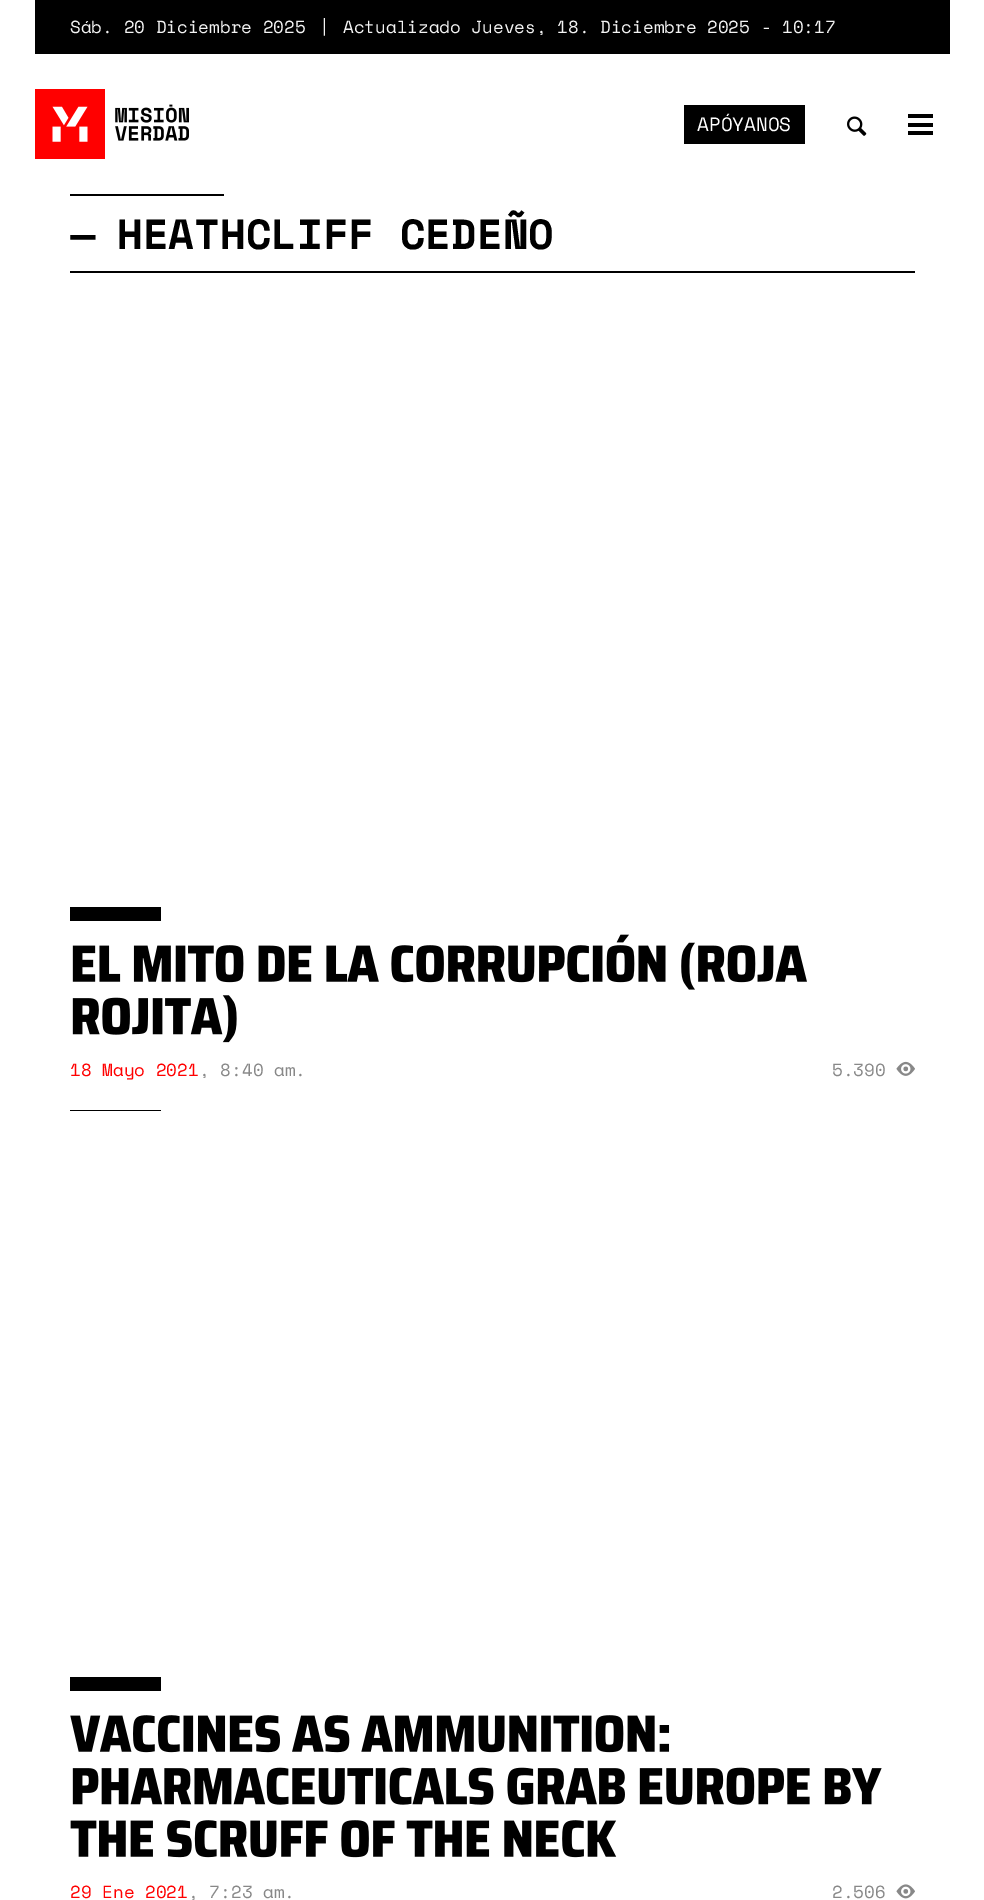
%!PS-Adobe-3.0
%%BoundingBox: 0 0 984 1900
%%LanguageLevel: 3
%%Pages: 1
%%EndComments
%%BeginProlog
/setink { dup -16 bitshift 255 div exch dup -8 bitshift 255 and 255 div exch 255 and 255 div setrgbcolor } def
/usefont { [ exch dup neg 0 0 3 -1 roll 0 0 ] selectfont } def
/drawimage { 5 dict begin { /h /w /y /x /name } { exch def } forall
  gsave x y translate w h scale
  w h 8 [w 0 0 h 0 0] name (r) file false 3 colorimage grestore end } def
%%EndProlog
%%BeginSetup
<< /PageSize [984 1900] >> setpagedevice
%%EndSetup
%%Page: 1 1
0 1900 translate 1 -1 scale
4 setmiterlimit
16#FFFFFF setink
0 0 984 1900 rectfill
16#000000 setink
35 0 915 54 rectfill
/SpaceMono-Regular 17.5 usefont
16#F3F3F3 setink
[
    [(Sáb. 20 Diciembre 2025) 70 33]
    [(|) 319 33]
    [(Actualizado Jueves, 18. Diciembre 2025 - 10:17) 343 33]
] { aload pop moveto show } forall
(img1.raw) 35 89 154 70 drawimage
16#000000 setink
684 105 121 39 rectfill
/SpaceMono-Regular 19.25 usefont
16#FFFFFF setink
697 131 moveto (APÓYANOS) show
(img2.raw) 847 116 20 20 drawimage
[
    [908 114 25 4 16#000000]
    [908 123 25 4 16#000000]
    [908 131 25 4 16#000000]
    [70 271 845 2 16#000000]
    [70 194 154 2 16#000000]
] { aload pop setink rectfill } forall
/SpaceMono-Bold 42 usefont
70 249 moveto (—) show
117 249 moveto (HEATHCLIFF CEDEÑO) show
70 907 91 14 rectfill
(img3.raw) 72 934 735 56 drawimage
(img4.raw) 72 995 165 48 drawimage
/SpaceMono-Regular 17.5 usefont
16#FF0000 setink
70 1076 moveto (18 Mayo 2021) show
16#888888 setink
199 1076 moveto (, 8:40 am.) show
832 1076 moveto (5.390) show
(img5.raw) 896 1061 19 15 drawimage
16#000000 setink
70 1110 91 1 rectfill
70 1677 91 14 rectfill
(img6.raw) 70 1715 600 38 drawimage
(img7.raw) 72 1767 810 38 drawimage
(img8.raw) 70 1820 547 38 drawimage
16#FF0000 setink
70 1898 moveto (29 Ene 2021) show
16#888888 setink
188 1898 moveto (, 7:23 am.) show
832 1898 moveto (2.506) show
(img9.raw) 896 1884 19 15 drawimage
showpage
%%EOF
